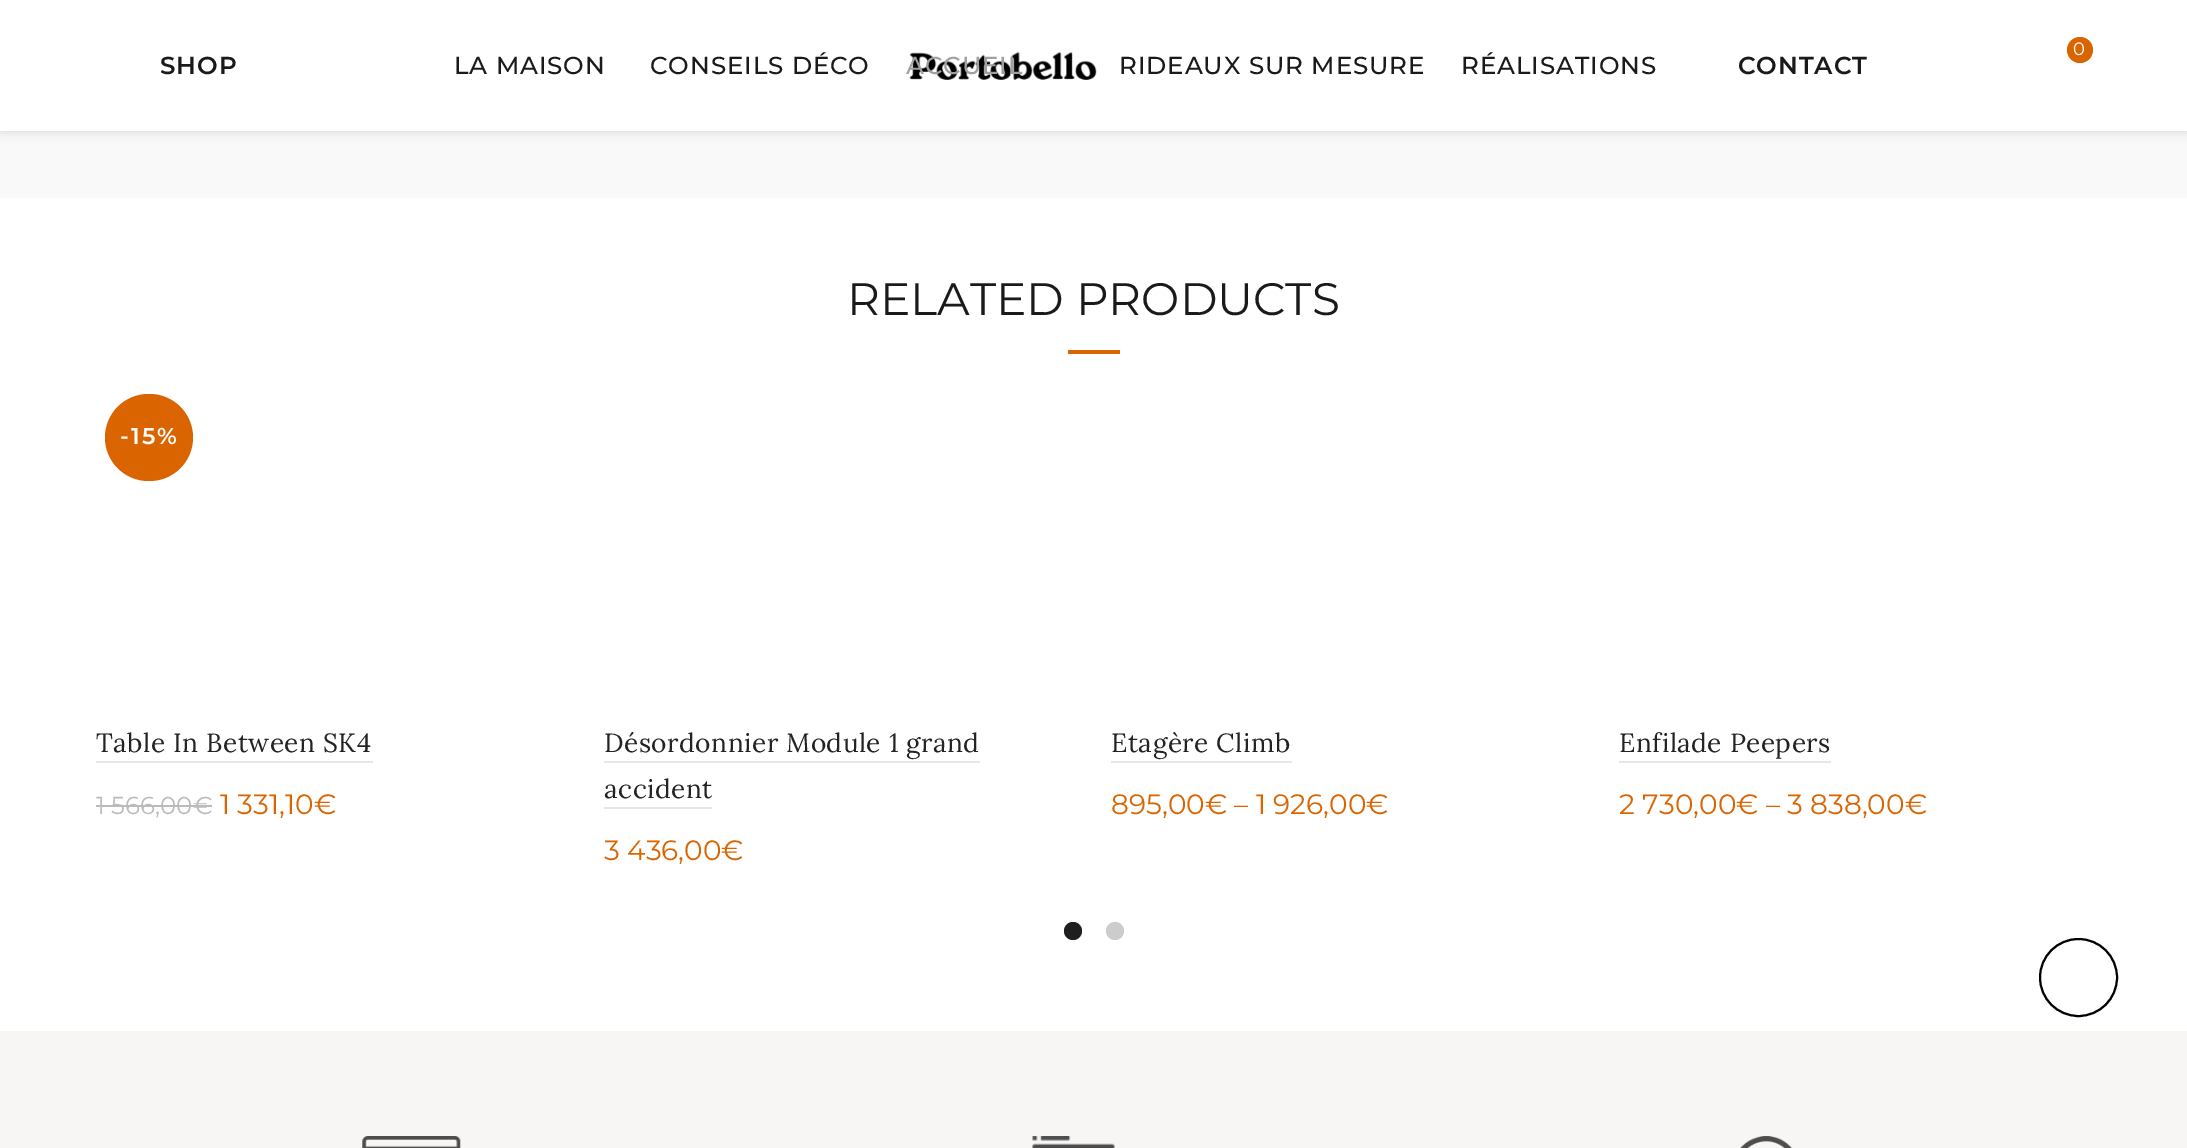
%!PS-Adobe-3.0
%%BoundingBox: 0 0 2187 1148
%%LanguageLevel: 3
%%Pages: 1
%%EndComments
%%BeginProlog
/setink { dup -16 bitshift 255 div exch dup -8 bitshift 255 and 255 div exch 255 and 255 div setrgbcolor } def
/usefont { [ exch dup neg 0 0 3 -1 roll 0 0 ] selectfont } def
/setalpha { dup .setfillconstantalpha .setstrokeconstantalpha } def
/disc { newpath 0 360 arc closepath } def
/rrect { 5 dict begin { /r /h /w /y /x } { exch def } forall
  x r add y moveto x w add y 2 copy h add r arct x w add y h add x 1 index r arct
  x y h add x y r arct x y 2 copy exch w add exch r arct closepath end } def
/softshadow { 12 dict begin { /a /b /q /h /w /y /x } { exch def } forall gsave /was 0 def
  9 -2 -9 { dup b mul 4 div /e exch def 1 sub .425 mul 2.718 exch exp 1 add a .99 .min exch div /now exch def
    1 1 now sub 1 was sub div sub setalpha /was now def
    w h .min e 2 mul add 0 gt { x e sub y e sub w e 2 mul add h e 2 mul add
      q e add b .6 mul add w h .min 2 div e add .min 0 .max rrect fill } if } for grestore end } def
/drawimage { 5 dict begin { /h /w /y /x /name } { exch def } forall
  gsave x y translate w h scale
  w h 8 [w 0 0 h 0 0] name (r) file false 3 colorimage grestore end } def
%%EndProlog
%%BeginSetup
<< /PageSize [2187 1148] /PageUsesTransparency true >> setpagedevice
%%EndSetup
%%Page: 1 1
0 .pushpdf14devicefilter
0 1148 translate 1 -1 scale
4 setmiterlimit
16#FFFFFF setink
0 0 2187 1148 rectfill
16#F9F9F9 setink
0 131 2187 67 rectfill
16#BEBEBE setink
0 2 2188 131 0 4.5 0.5 softshadow
16#FFFFFF setink
0 0 2187 131 rectfill
16#DA6500 setink
2080 50 13 disc fill
/Montserrat-Regular 18 usefont
16#FFFFFF setink
2073 55 moveto (0) show
/Montserrat-SemiBold 24.5 usefont
16#1B1919 setink
160 74 moveto 0.9 0 (SHOP) ashow
/Montserrat-Medium 24.5 usefont
454 74 moveto 0.9 0 (LA MAISON) ashow
650 74 moveto 0.9 0 (CONSEILS DÉCO) ashow
(img1.raw) 909 52 188 28 drawimage
16#A0A0A0 setink
906 74 moveto 0.9 0 (ACCUEIL) ashow
16#1B1919 setink
1119 74 moveto 0.9 0 (RIDEAUX SUR MESURE) ashow
1461 74 moveto 0.9 0 (RÉALISATIONS) ashow
/Montserrat-SemiBold 24.5 usefont
1738 74 moveto 0.9 0 (CONTACT) ashow
/Montserrat-Regular 45.5 usefont
847 315 moveto (RELATED PRODUCTS) show
16#DA6500 setink
1068 350 52 4 rectfill
105 394 88 87 43.5 rrect fill
/Montserrat-SemiBold 23 usefont
16#FFFFFF setink
120 444 moveto 2 0 (-15%) ashow
/Lora-Regular 26.25 usefont
16#252222 setink
96 752 moveto 0.5 0 (Table In Between SK4) ashow
16#E6E6E6 setink
96 761 277 2 rectfill
/Montserrat-Regular 24.5 usefont
16#BBBBBB setink
96 814 moveto (1 566,00€) show
96 805 116 2 rectfill
/Montserrat-Regular 28 usefont
16#DA6500 setink
220 814 moveto (1 331,10€) show
/Lora-Regular 26.25 usefont
16#252222 setink
604 752 moveto 0.5 0 (Désordonnier Module 1 grand) ashow
16#E6E6E6 setink
604 761 376 2 rectfill
16#252222 setink
604 798 moveto 0.5 0 (accident) ashow
16#E6E6E6 setink
604 807 108 2 rectfill
/Montserrat-Regular 28 usefont
16#DA6500 setink
604 860 moveto (3 436,00€) show
/Lora-Regular 26.25 usefont
16#252222 setink
1111 752 moveto 0.5 0 (Etagère Climb) ashow
16#E6E6E6 setink
1111 761 181 2 rectfill
/Montserrat-Regular 28 usefont
16#DA6500 setink
1111 814 moveto (895,00€ – 1 926,00€) show
/Lora-Regular 26.25 usefont
16#252222 setink
1619 752 moveto 0.5 0 (Enfilade Peepers) ashow
16#E6E6E6 setink
1619 761 212 2 rectfill
/Montserrat-Regular 28 usefont
16#DA6500 setink
1619 814 moveto (2 730,00€ – 3 838,00€) show
16#1F1F1F setink
1073 931 9 disc fill
16#CCCCCC setink
1115 931 9 disc fill
16#F7F6F4 setink
0 1031 2187 117 rectfill
(img2.raw) 362 1136 99 12 drawimage
(img3.raw) 1032 1136 83 12 drawimage
(img4.raw) 1740 1136 52 12 drawimage
16#000000 setink
2 setlinewidth
2078.5 977.5 38.5 disc stroke
.poppdf14devicefilter showpage
%%EOF
